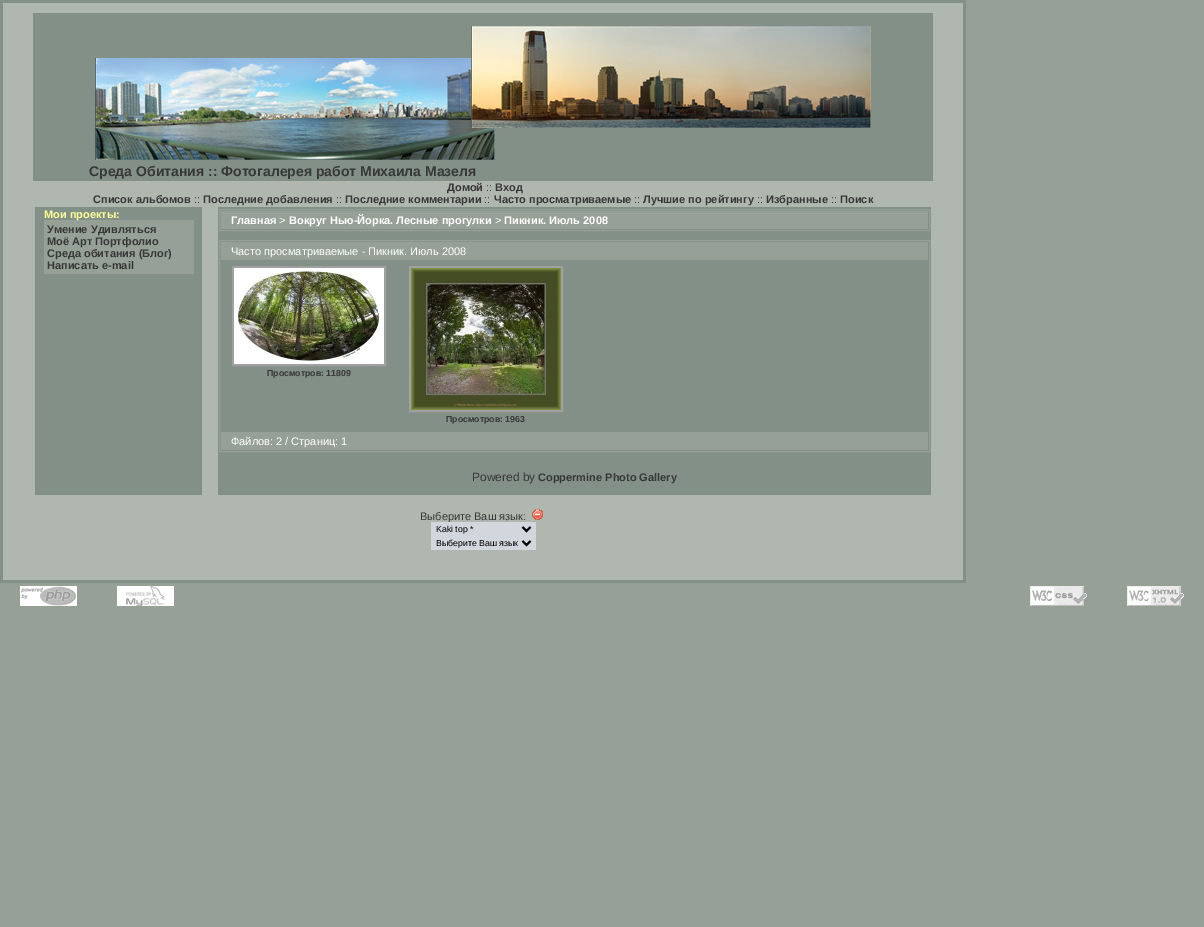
%!PS-Adobe-3.0
%%BoundingBox: 0 0 1204 927
%%LanguageLevel: 3
%%Pages: 1
%%EndComments
%%BeginProlog
/setink { dup -16 bitshift 255 div exch dup -8 bitshift 255 and 255 div exch 255 and 255 div setrgbcolor } def
/usefont { [ exch dup neg 0 0 3 -1 roll 0 0 ] selectfont } def
/drawimage { 5 dict begin { /h /w /y /x /name } { exch def } forall
  gsave x y translate w h scale
  w h 8 [w 0 0 h 0 0] name (r) file false 3 colorimage grestore end } def
%%EndProlog
%%BeginSetup
<< /PageSize [1204 927] >> setpagedevice
%%EndSetup
%%Page: 1 1
0 927 translate 1 -1 scale
4 setmiterlimit
16#96A096 setink
0 0 1204 927 rectfill
[
    [0 0 966 583 16#839087]
    [3 3 960 577 16#AFB7AF]
    [33 13 900 168 16#839087]
] { aload pop setink rectfill } forall
(img1.raw) 94 25 777 136 drawimage
/LiberationSans-Bold 14 usefont
16#383838 setink
89 176 moveto (Среда Обитания :: Фотогалерея работ Михаила Мазеля) show
/LiberationSans-Bold 11 usefont
447 191 moveto (Домой) show
/LiberationSans-Regular 11 usefont
486 191 moveto (::) show
/LiberationSans-Bold 11 usefont
495 191 moveto (Вход) show
93 203 moveto (Список альбомов) show
/LiberationSans-Regular 11 usefont
194 203 moveto (::) show
/LiberationSans-Bold 11 usefont
203 203 moveto (Последние добавления) show
/LiberationSans-Regular 11 usefont
336 203 moveto (::) show
/LiberationSans-Bold 11 usefont
345 203 moveto (Последние комментарии) show
/LiberationSans-Regular 11 usefont
484 203 moveto (::) show
/LiberationSans-Bold 11 usefont
494 203 moveto (Часто просматриваемые) show
/LiberationSans-Regular 11 usefont
634 203 moveto (::) show
/LiberationSans-Bold 11 usefont
643 203 moveto (Лучшие по рейтингу) show
/LiberationSans-Regular 11 usefont
757 203 moveto (::) show
/LiberationSans-Bold 11 usefont
766 203 moveto (Избранные) show
/LiberationSans-Regular 11 usefont
831 203 moveto (::) show
/LiberationSans-Bold 11 usefont
840 203 moveto (Поиск) show
16#839087 setink
35 207 167 288 rectfill
16#96A096 setink
44 220 150 54 rectfill
16#FFFF99 setink
44 218 moveto (Мои проекты:) show
16#383838 setink
[
    [(Умение Удивляться) 47 233]
    [(Моё Арт Портфолио) 47 245]
    [(Среда обитания \(Блог\)) 47 257]
    [(Написать e-mail) 47 269]
] { aload pop moveto show } forall
16#839087 setink
218 207 713 288 rectfill
16#96A096 setink
219.5 209.5 710 21 rectstroke
221 211 707 18 rectfill
16#FFFFFF setink
231 224 moveto (Главная) show
/LiberationSans-Regular 11 usefont
279 224 moveto (>) show
/LiberationSans-Bold 11 usefont
289 224 moveto (Вокруг Нью-Йорка. Лесные прогулки) show
/LiberationSans-Regular 11 usefont
495 224 moveto (>) show
/LiberationSans-Bold 11 usefont
504 224 moveto (Пикник. Июль 2008) show
16#96A096 setink
219.5 240.5 710 211 rectstroke
221 242 707 18 rectfill
/LiberationSans-Regular 11 usefont
16#FFFFFF setink
231 255 moveto (Часто просматриваемые - Пикник. Июль 2008) show
16#A0A0A0 setink
2 setlinewidth
233 267 152 98 rectstroke
(img2.raw) 234 268 150 96 drawimage
/LiberationSans-Bold 8.75 usefont
16#383838 setink
267 376 moveto (Просмотров: 11809) show
16#A0A0A0 setink
410 267 152 144 rectstroke
(img3.raw) 411 268 150 142 drawimage
16#383838 setink
446 422 moveto (Просмотров: 1963) show
16#96A096 setink
221 432 707 18 rectfill
/LiberationSans-Regular 11 usefont
16#FFFFFF setink
231 445 moveto (Файлов: 2 / Страниц: 1) show
/LiberationSans-Regular 12 usefont
16#383838 setink
472 481 moveto (Powered by) show
/LiberationSans-Bold 11 usefont
538 481 moveto (Coppermine Photo Gallery) show
/LiberationSans-Regular 11 usefont
420 520 moveto (Выберите Ваш язык:) show
(img4.raw) 532 509 11 11 drawimage
16#D1D7DC setink
431 522 105 28 rectfill
16#000000 setink
522.5 527 moveto 526.5 531 lineto 530.5 527 lineto stroke
/LiberationSans-Regular 8.75 usefont
436 532 moveto (Kaki top *) show
522.5 541 moveto 526.5 545 lineto 530.5 541 lineto stroke
436 546 moveto (Выберите Ваш язык) show
(img5.raw) 20 586 57 20 drawimage
(img6.raw) 117 586 57 20 drawimage
(img7.raw) 1030 586 57 20 drawimage
(img8.raw) 1127 586 57 20 drawimage
showpage
%%EOF
